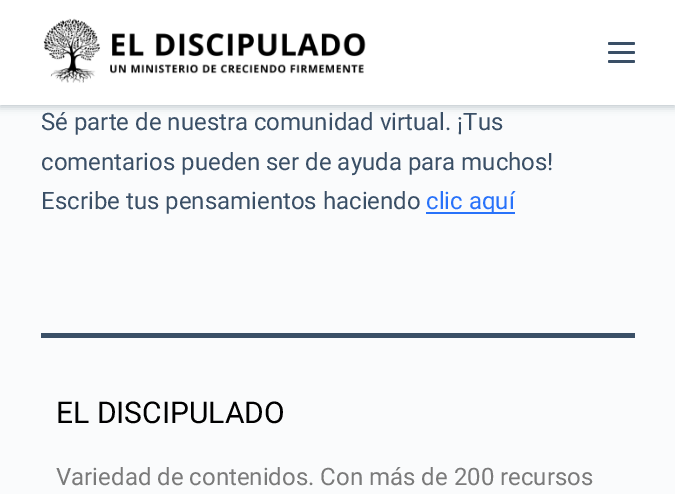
%!PS-Adobe-3.0
%%BoundingBox: 0 0 675 494
%%LanguageLevel: 3
%%Pages: 1
%%EndComments
%%BeginProlog
/setink { dup -16 bitshift 255 div exch dup -8 bitshift 255 and 255 div exch 255 and 255 div setrgbcolor } def
/usefont { [ exch dup neg 0 0 3 -1 roll 0 0 ] selectfont } def
/setalpha { dup .setfillconstantalpha .setstrokeconstantalpha } def
/rrect { 5 dict begin { /r /h /w /y /x } { exch def } forall
  x r add y moveto x w add y 2 copy h add r arct x w add y h add x 1 index r arct
  x y h add x y r arct x y 2 copy exch w add exch r arct closepath end } def
/softshadow { 12 dict begin { /a /b /q /h /w /y /x } { exch def } forall gsave /was 0 def
  9 -2 -9 { dup b mul 4 div /e exch def 1 sub .425 mul 2.718 exch exp 1 add a .99 .min exch div /now exch def
    1 1 now sub 1 was sub div sub setalpha /was now def
    w h .min e 2 mul add 0 gt { x e sub y e sub w e 2 mul add h e 2 mul add
      q e add b .6 mul add w h .min 2 div e add .min 0 .max rrect fill } if } for grestore end } def
/drawimage { 5 dict begin { /h /w /y /x /name } { exch def } forall
  gsave x y translate w h scale
  w h 8 [w 0 0 h 0 0] name (r) file false 3 colorimage grestore end } def
%%EndProlog
%%BeginSetup
<< /PageSize [675 494] /PageUsesTransparency true >> setpagedevice
%%EndSetup
%%Page: 1 1
0 .pushpdf14devicefilter
0 494 translate 1 -1 scale
4 setmiterlimit
16#FAFBFC setink
0 0 675 494 rectfill
16#2B3D4F setink
0 2 675 105 0 4 0.28 softshadow
16#FFFFFF setink
0 0 675 105 rectfill
(img1.raw) 43 18 323 65 drawimage
16#3A4F66 setink
608 42 27 3 1.5 rrect fill
608 51 27 3 1.5 rrect fill
608 60 27 3 1.5 rrect fill
/Roboto-Regular 24 usefont
[
    [(Sé parte de nuestra comunidad virtual. ¡Tus) 41 130]
    [(comentarios pueden ser de ayuda para muchos!) 41 170]
    [(Escribe tus pensamientos haciendo) 41 209]
] { aload pop moveto show } forall
16#2872FA setink
426 212 89 2 rectfill
426 209 moveto (clic aquí) show
16#3A4F66 setink
41 333 594 5 rectfill
/Roboto-Regular 30 usefont
16#000000 setink
56 423 moveto (EL DISCIPULADO) show
/Roboto-Regular 24 usefont
16#7A7A7A setink
56 485 moveto (Variedad de contenidos. Con más de 200 recursos) show
.poppdf14devicefilter showpage
%%EOF
